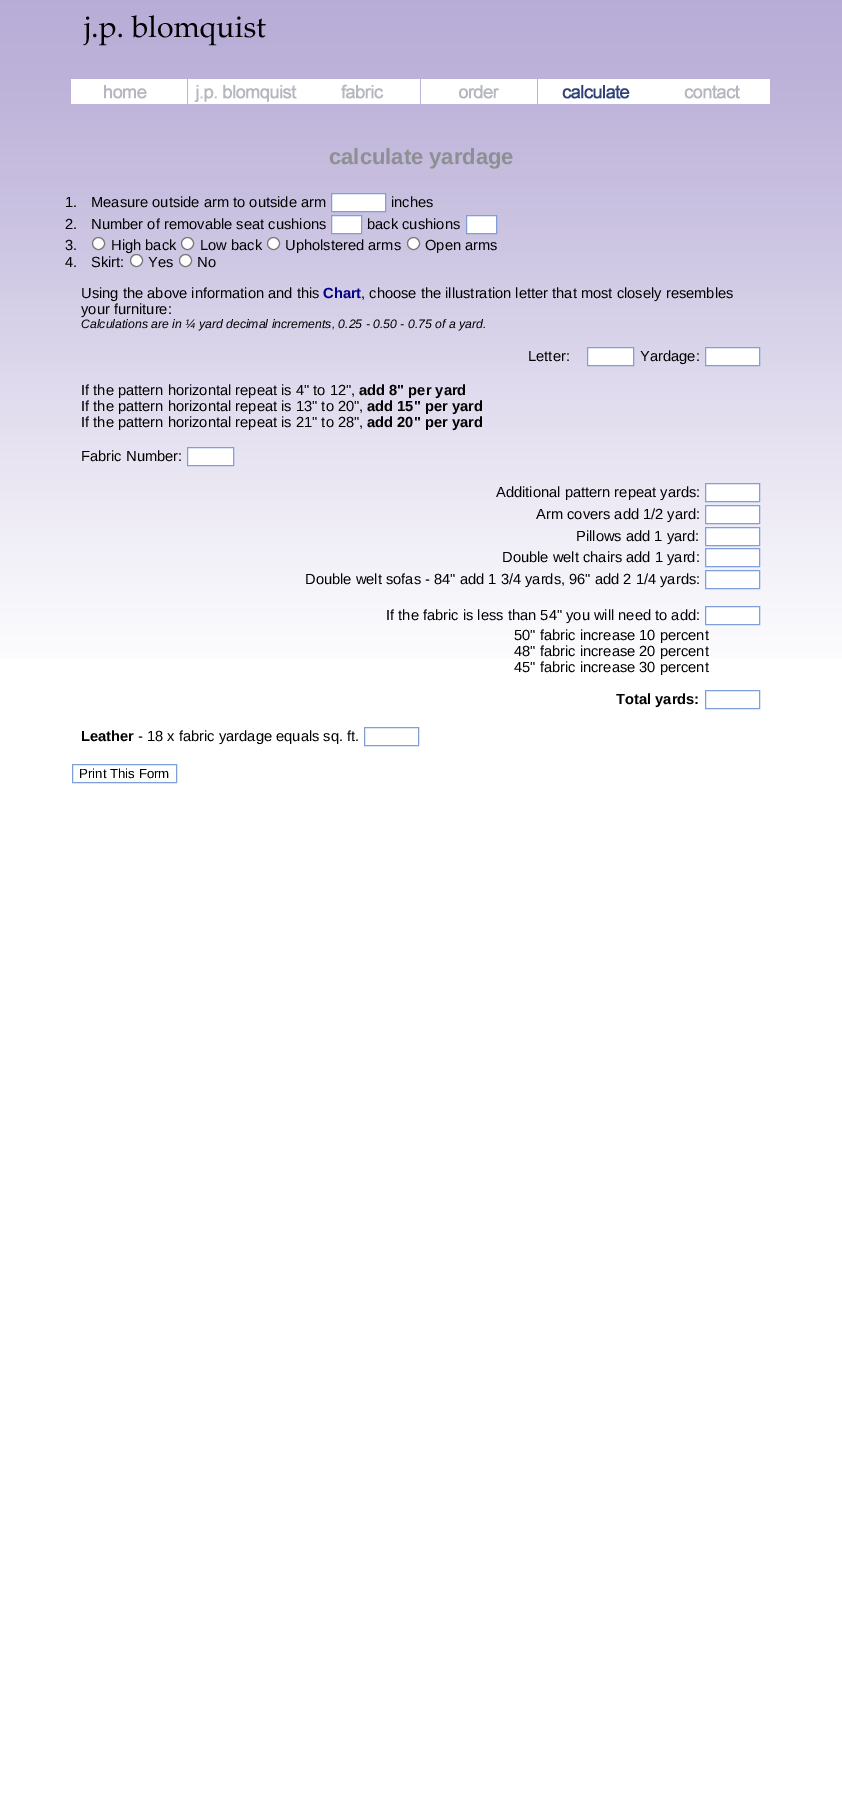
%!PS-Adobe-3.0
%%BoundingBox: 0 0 842 1800
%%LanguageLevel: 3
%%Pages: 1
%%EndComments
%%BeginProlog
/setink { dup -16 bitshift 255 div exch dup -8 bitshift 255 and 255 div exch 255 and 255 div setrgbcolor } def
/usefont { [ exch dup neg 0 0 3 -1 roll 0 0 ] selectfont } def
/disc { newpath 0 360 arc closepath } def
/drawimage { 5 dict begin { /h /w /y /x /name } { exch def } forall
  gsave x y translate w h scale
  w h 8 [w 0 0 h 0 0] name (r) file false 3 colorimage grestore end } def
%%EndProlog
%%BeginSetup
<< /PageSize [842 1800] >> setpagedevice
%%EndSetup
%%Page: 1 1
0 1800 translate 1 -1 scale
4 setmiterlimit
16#FFFFFF setink
0 0 842 1800 rectfill
(img1.raw) 0 0 842 659 drawimage
(img2.raw) 83 15 183 31 drawimage
(img3.raw) 71 79 116 25 drawimage
(img4.raw) 188 79 116 25 drawimage
(img5.raw) 304 79 116 25 drawimage
(img6.raw) 421 79 116 25 drawimage
(img7.raw) 538 79 116 25 drawimage
(img8.raw) 654 79 116 25 drawimage
/LiberationSans-Bold 22 usefont
16#8E8F92 setink
329 164 moveto (calculate yardage) show
/LiberationSans-Regular 14.7 usefont
16#000000 setink
65 207 moveto (1.) show
91 207 moveto (Measure outside arm to outside arm) show
16#FFFFFF setink
331.5 193.5 moveto 385.5 193.5 lineto 385.5 211.5 lineto 331.5 211.5 lineto closepath gsave fill grestore
16#7E9FDA setink
stroke
16#000000 setink
[
    [(inches) 391 207]
    [(2.) 65 229]
    [(Number of removable seat cushions) 91 229]
] { aload pop moveto show } forall
16#FFFFFF setink
331.5 215.5 moveto 361.5 215.5 lineto 361.5 233.5 lineto 331.5 233.5 lineto closepath gsave fill grestore
16#7E9FDA setink
stroke
16#000000 setink
367 229 moveto (back cushions) show
16#FFFFFF setink
466.5 215.5 moveto 496.5 215.5 lineto 496.5 233.5 lineto 466.5 233.5 lineto closepath gsave fill grestore
16#7E9FDA setink
stroke
16#000000 setink
65 250 moveto (3.) show
16#FFFFFF setink
98.5 243.5 6 disc gsave fill grestore
16#767676 setink
stroke
16#000000 setink
111 250 moveto (High back) show
16#FFFFFF setink
187.5 243.5 6 disc gsave fill grestore
16#767676 setink
stroke
16#000000 setink
200 250 moveto (Low back) show
16#FFFFFF setink
273.5 243.5 6 disc gsave fill grestore
16#767676 setink
stroke
16#000000 setink
285 250 moveto (Upholstered arms) show
16#FFFFFF setink
413.5 243.5 6 disc gsave fill grestore
16#767676 setink
stroke
16#000000 setink
[
    [(Open arms) 425 250]
    [(4.) 65 267]
    [(Skirt:) 91 267]
] { aload pop moveto show } forall
16#FFFFFF setink
136.5 260.5 6 disc gsave fill grestore
16#767676 setink
stroke
16#000000 setink
148 267 moveto (Yes) show
16#FFFFFF setink
185.5 260.5 6 disc gsave fill grestore
16#767676 setink
stroke
16#000000 setink
197 267 moveto (No) show
81 298 moveto (Using the above information and this) show
/LiberationSans-Bold 14.7 usefont
16#000088 setink
323 298 moveto (Chart) show
/LiberationSans-Regular 14.7 usefont
16#000000 setink
361 298 moveto (, choose the illustration letter that most closely resembles) show
81 314 moveto (your furniture:) show
/LiberationSans-Italic 12.25 usefont
81 328 moveto (Calculations are in ¼ yard decimal increments, 0.25 - 0.50 - 0.75 of a yard.) show
/LiberationSans-Regular 14.7 usefont
528 361 moveto (Letter:) show
16#FFFFFF setink
587.5 347.5 moveto 633.5 347.5 lineto 633.5 365.5 lineto 587.5 365.5 lineto closepath gsave fill grestore
16#7E9FDA setink
stroke
16#000000 setink
640 361 moveto (Yardage:) show
16#FFFFFF setink
705.5 347.5 moveto 759.5 347.5 lineto 759.5 365.5 lineto 705.5 365.5 lineto closepath gsave fill grestore
16#7E9FDA setink
stroke
16#000000 setink
81 395 moveto (If the pattern horizontal repeat is 4" to 12",) show
/LiberationSans-Bold 14.7 usefont
359 395 moveto (add 8" per yard) show
/LiberationSans-Regular 14.7 usefont
81 411 moveto (If the pattern horizontal repeat is 13" to 20",) show
/LiberationSans-Bold 14.7 usefont
367 411 moveto (add 15" per yard) show
/LiberationSans-Regular 14.7 usefont
81 427 moveto (If the pattern horizontal repeat is 21" to 28",) show
/LiberationSans-Bold 14.7 usefont
367 427 moveto (add 20" per yard) show
/LiberationSans-Regular 14.7 usefont
81 461 moveto (Fabric Number:) show
16#FFFFFF setink
187.5 447.5 moveto 233.5 447.5 lineto 233.5 465.5 lineto 187.5 465.5 lineto closepath gsave fill grestore
16#7E9FDA setink
stroke
16#000000 setink
496 497 moveto (Additional pattern repeat yards:) show
16#FFFFFF setink
705.5 483.5 moveto 759.5 483.5 lineto 759.5 501.5 lineto 705.5 501.5 lineto closepath gsave fill grestore
16#7E9FDA setink
stroke
16#000000 setink
536 519 moveto (Arm covers add 1/2 yard:) show
16#FFFFFF setink
705.5 505.5 moveto 759.5 505.5 lineto 759.5 523.5 lineto 705.5 523.5 lineto closepath gsave fill grestore
16#7E9FDA setink
stroke
16#000000 setink
576 541 moveto (Pillows add 1 yard:) show
16#FFFFFF setink
705.5 527.5 moveto 759.5 527.5 lineto 759.5 545.5 lineto 705.5 545.5 lineto closepath gsave fill grestore
16#7E9FDA setink
stroke
16#000000 setink
502 562 moveto (Double welt chairs add 1 yard:) show
16#FFFFFF setink
705.5 548.5 moveto 759.5 548.5 lineto 759.5 566.5 lineto 705.5 566.5 lineto closepath gsave fill grestore
16#7E9FDA setink
stroke
16#000000 setink
305 584 moveto (Double welt sofas - 84" add 1 3/4 yards, 96" add 2 1/4 yards:) show
16#FFFFFF setink
705.5 570.5 moveto 759.5 570.5 lineto 759.5 588.5 lineto 705.5 588.5 lineto closepath gsave fill grestore
16#7E9FDA setink
stroke
16#000000 setink
386 620 moveto (If the fabric is less than 54" you will need to add:) show
16#FFFFFF setink
705.5 606.5 moveto 759.5 606.5 lineto 759.5 624.5 lineto 705.5 624.5 lineto closepath gsave fill grestore
16#7E9FDA setink
stroke
16#000000 setink
[
    [(50" fabric increase 10 percent) 514 640]
    [(48" fabric increase 20 percent) 514 656]
    [(45" fabric increase 30 percent) 514 672]
] { aload pop moveto show } forall
/LiberationSans-Bold 14.7 usefont
616 704 moveto (Total yards:) show
16#7E9FDA setink
705.5 690.5 54 18 rectstroke
16#000000 setink
81 741 moveto (Leather) show
/LiberationSans-Regular 14.7 usefont
138 741 moveto (- 18 x fabric yardage equals sq. ft.) show
16#7E9FDA setink
364.5 727.5 54 18 rectstroke
72.5 764.5 104 18 rectstroke
/LiberationSans-Regular 13.25 usefont
16#000000 setink
79 778 moveto (Print This Form) show
showpage
%%EOF
